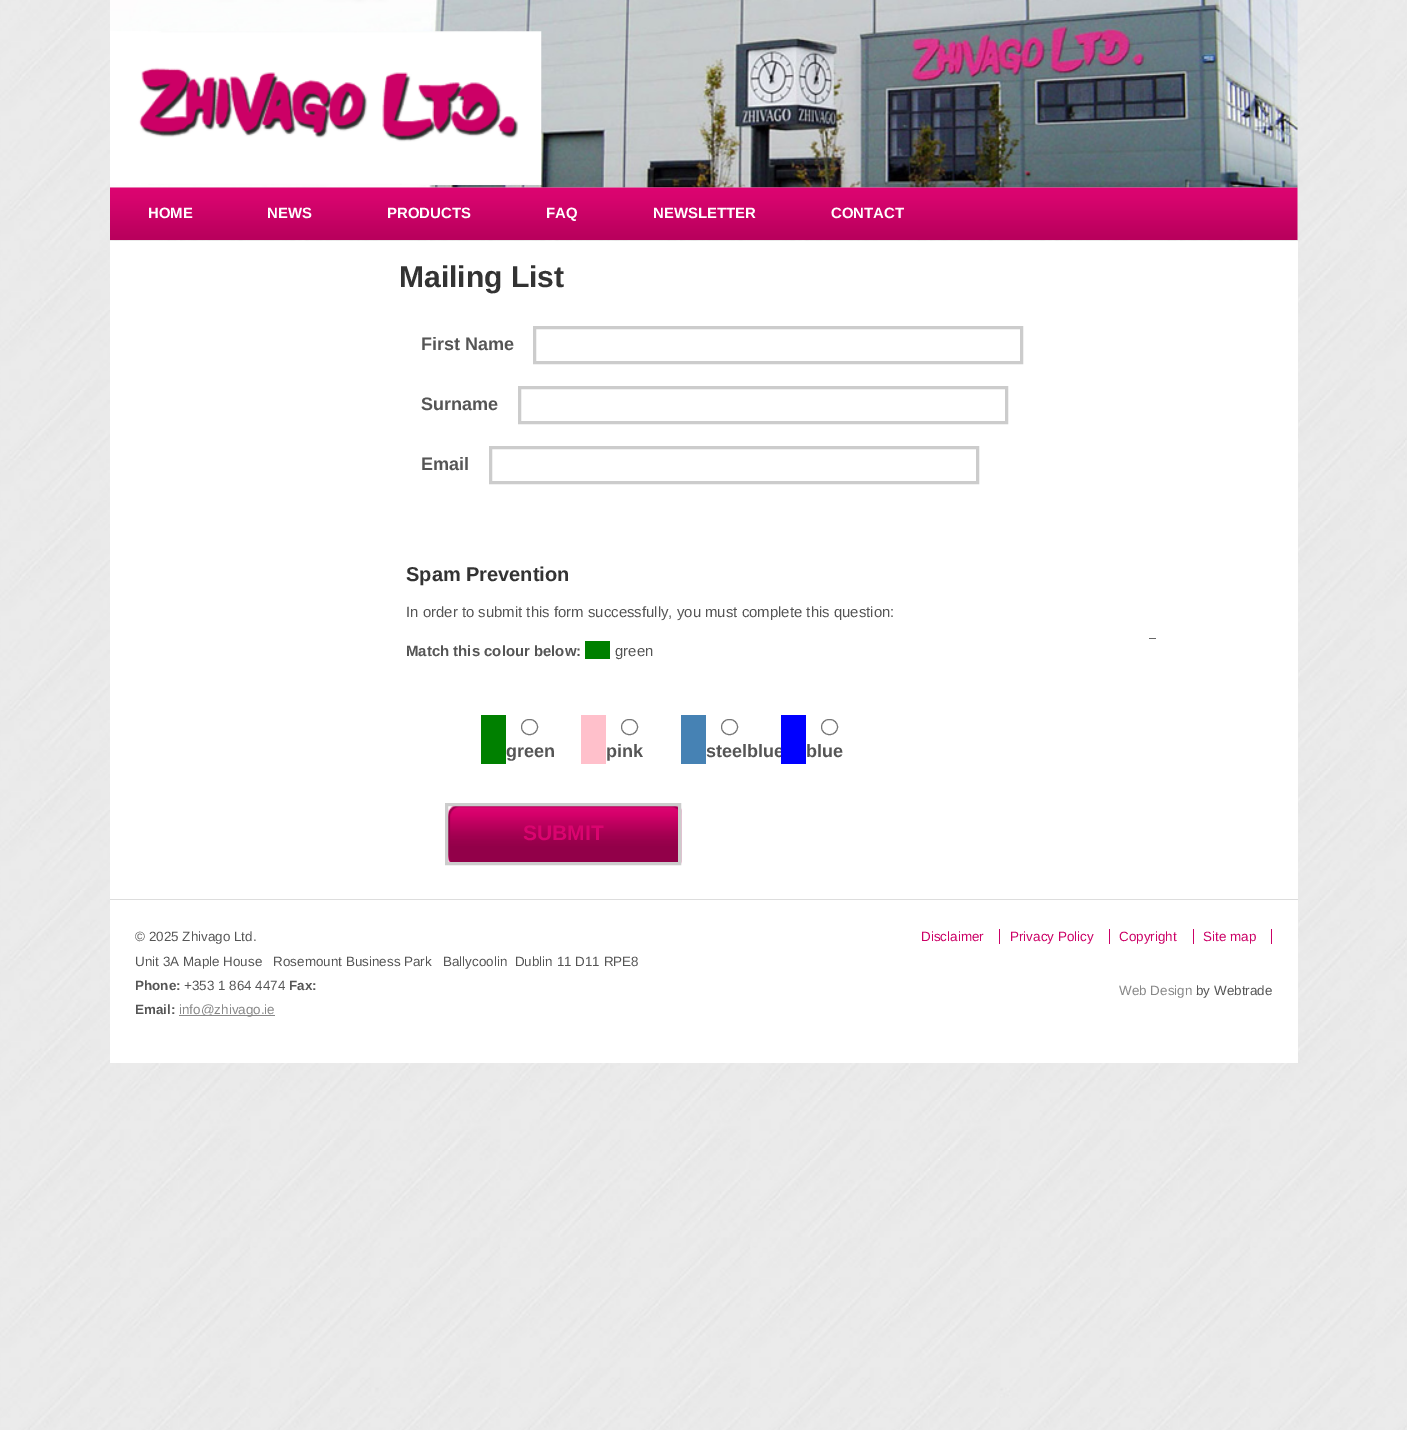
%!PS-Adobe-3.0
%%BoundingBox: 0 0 1407 1430
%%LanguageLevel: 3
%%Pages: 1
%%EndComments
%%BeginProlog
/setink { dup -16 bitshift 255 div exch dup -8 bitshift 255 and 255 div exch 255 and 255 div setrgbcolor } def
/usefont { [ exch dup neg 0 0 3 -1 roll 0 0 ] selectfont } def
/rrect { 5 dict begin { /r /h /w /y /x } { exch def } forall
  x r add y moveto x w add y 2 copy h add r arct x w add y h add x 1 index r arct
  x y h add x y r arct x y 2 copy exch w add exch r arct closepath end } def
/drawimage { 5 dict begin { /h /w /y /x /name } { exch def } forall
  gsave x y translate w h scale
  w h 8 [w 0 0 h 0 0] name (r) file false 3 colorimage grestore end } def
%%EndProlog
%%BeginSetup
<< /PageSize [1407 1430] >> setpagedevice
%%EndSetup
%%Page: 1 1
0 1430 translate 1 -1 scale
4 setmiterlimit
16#FFFFFF setink
0 0 1407 1430 rectfill
(img1.raw) 0 1063 1407 367 drawimage
(img2.raw) 0 0 1407 1063 drawimage
(img3.raw) 110 0 1188 188 drawimage
(img4.raw) 110 31 432 154 drawimage
(img5.raw) 110 187 1188 53 drawimage
/LiberationSans-Bold 14.95 usefont
[
    [(HOME) 148 218]
    [(NEWS) 267 218]
    [(PRODUCTS) 387 218]
    [(FAQ) 546 218]
    [(NEWSLETTER) 653 218]
    [(CONTACT) 831 218]
] { aload pop moveto show } forall
110 241 1188 658 rectfill
/LiberationSans-Bold 30 usefont
16#333333 setink
399 287 moveto (Mailing List) show
/LiberationSans-Bold 18 usefont
16#555555 setink
421 350 moveto (First Name) show
16#CCCCCC setink
3 setlinewidth
534.5 327.5 487 35 rectstroke
16#555555 setink
421 410 moveto (Surname) show
16#CCCCCC setink
519.5 387.5 487 35 rectstroke
16#555555 setink
421 470 moveto (Email) show
16#CCCCCC setink
490.5 447.5 487 35 rectstroke
/LiberationSans-Bold 20 usefont
16#333333 setink
406 581 moveto (Spam Prevention) show
/LiberationSans-Regular 14.95 usefont
16#555555 setink
406 617 moveto (In order to submit this form successfully, you must complete this question:) show
16#666666 setink
1149 638 7 1 rectfill
/LiberationSans-Bold 14.95 usefont
16#555555 setink
406 656 moveto (Match this colour below:) show
16#008000 setink
585 641 25 18 rectfill
/LiberationSans-Regular 14.95 usefont
16#555555 setink
615 656 moveto (green) show
16#008000 setink
481 715 25 49 rectfill
16#767676 setink
1 setlinewidth
521.5 719.5 16 15 7.5 rrect stroke
/LiberationSans-Bold 18 usefont
16#555555 setink
506 757 moveto (green) show
16#FFC0CB setink
581 715 25 49 rectfill
16#767676 setink
621.5 719.5 16 15 7.5 rrect stroke
16#555555 setink
606 757 moveto (pink) show
16#4682B4 setink
681 715 25 49 rectfill
16#767676 setink
721.5 719.5 16 15 7.5 rrect stroke
16#555555 setink
706 757 moveto (steelblue) show
16#0000FF setink
781 715 25 49 rectfill
16#767676 setink
821.5 719.5 16 15 7.5 rrect stroke
16#555555 setink
806 757 moveto (blue) show
(img6.raw) 448 805 234 60 drawimage
16#CCCCCC setink
3 setlinewidth
446.5 804.5 233 59 rectstroke
/LiberationSans-Bold 21 usefont
16#DA046F setink
523 840 moveto (SUBMIT) show
16#FFFFFF setink
110 900 1188 163 rectfill
16#DDDDDD setink
110 899 1188 1 rectfill
/LiberationSans-Regular 13.45 usefont
16#555555 setink
[
    [(© 2025 Zhivago Ltd.) 135 941]
    [(Unit 3A Maple House   Rosemount Business Park) 135 966]
    [(Ballycoolin  Dublin 11 D11 RPE8) 443 966]
] { aload pop moveto show } forall
/LiberationSans-Bold 13.45 usefont
135 990 moveto (Phone:) show
/LiberationSans-Regular 13.45 usefont
184 990 moveto (+353 1 864 4474) show
/LiberationSans-Bold 13.45 usefont
289 990 moveto (Fax:) show
135 1014 moveto (Email:) show
16#888888 setink
179 1015 96 1 rectfill
/LiberationSans-Regular 13.45 usefont
179 1014 moveto (info@zhivago.ie) show
16#CC0066 setink
921 941 moveto (Disclaimer) show
999 929 1 15 rectfill
1010 941 moveto (Privacy Policy) show
1109 929 1 15 rectfill
1119 941 moveto (Copyright) show
1193 929 1 15 rectfill
1203 941 moveto (Site map) show
1271 929 1 15 rectfill
16#888888 setink
1119 995 moveto (Web Design) show
16#555555 setink
1196 995 moveto (by Webtrade) show
showpage
%%EOF
